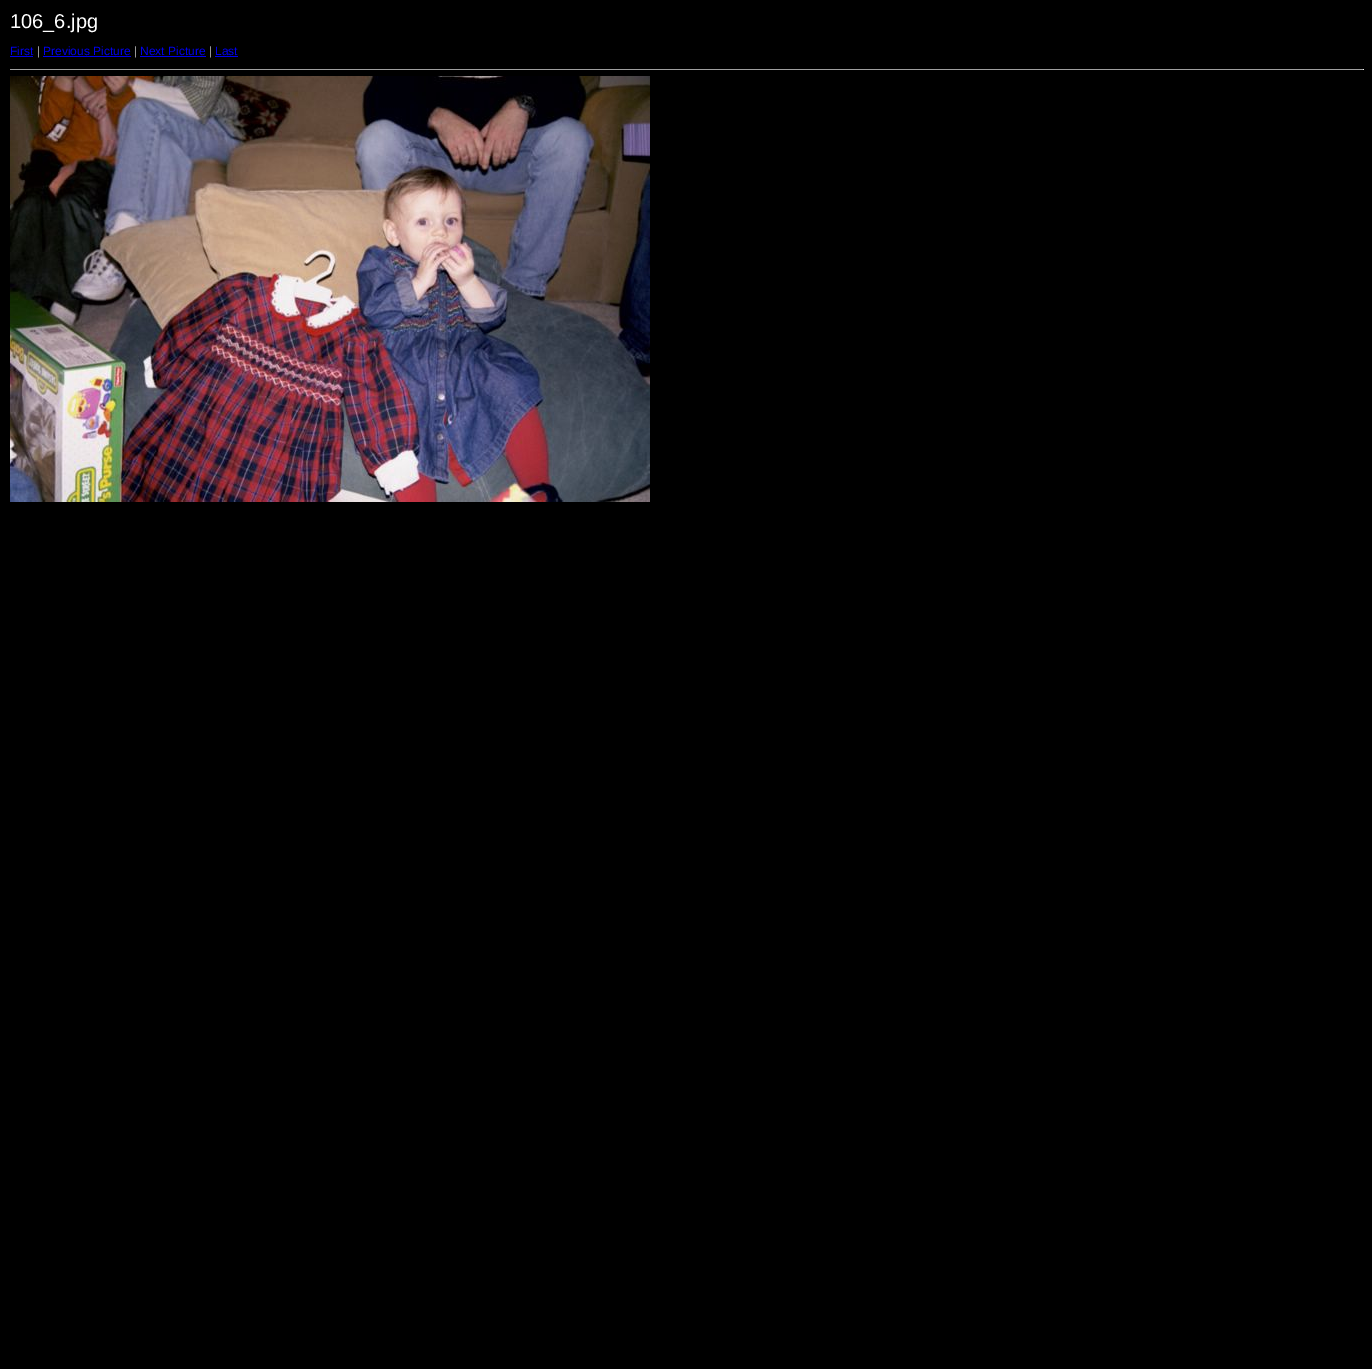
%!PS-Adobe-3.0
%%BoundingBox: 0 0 1372 1369
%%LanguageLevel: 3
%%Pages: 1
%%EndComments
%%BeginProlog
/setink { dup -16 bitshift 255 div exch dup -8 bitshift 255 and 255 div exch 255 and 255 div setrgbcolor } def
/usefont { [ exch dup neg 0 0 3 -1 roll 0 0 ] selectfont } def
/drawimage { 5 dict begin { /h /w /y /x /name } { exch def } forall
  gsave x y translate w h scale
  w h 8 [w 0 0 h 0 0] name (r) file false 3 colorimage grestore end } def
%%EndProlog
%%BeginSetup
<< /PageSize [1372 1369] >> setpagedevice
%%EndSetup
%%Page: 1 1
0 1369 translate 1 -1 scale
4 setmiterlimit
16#000000 setink
0 0 1372 1369 rectfill
/LiberationSans-Regular 20 usefont
16#FFFFFF setink
10 28 moveto (106_6.jpg) show
/LiberationSans-Regular 12 usefont
16#0000EE setink
10 55 moveto (First) show
10 56 23 1 rectfill
16#999999 setink
37 55 moveto (|) show
16#0000EE setink
43 55 moveto (Previous Picture) show
43 56 88 1 rectfill
16#999999 setink
134 55 moveto (|) show
16#0000EE setink
140 55 moveto (Next Picture) show
140 56 66 1 rectfill
16#999999 setink
209 55 moveto (|) show
16#0000EE setink
215 55 moveto (Last) show
[
    [215 56 23 1 16#0000EE]
    [10 69 1354 1 16#9F9F9F]
    [1363 69 1 1 16#EEEEEE]
] { aload pop setink rectfill } forall
(img1.raw) 10 76 640 426 drawimage
showpage
%%EOF
